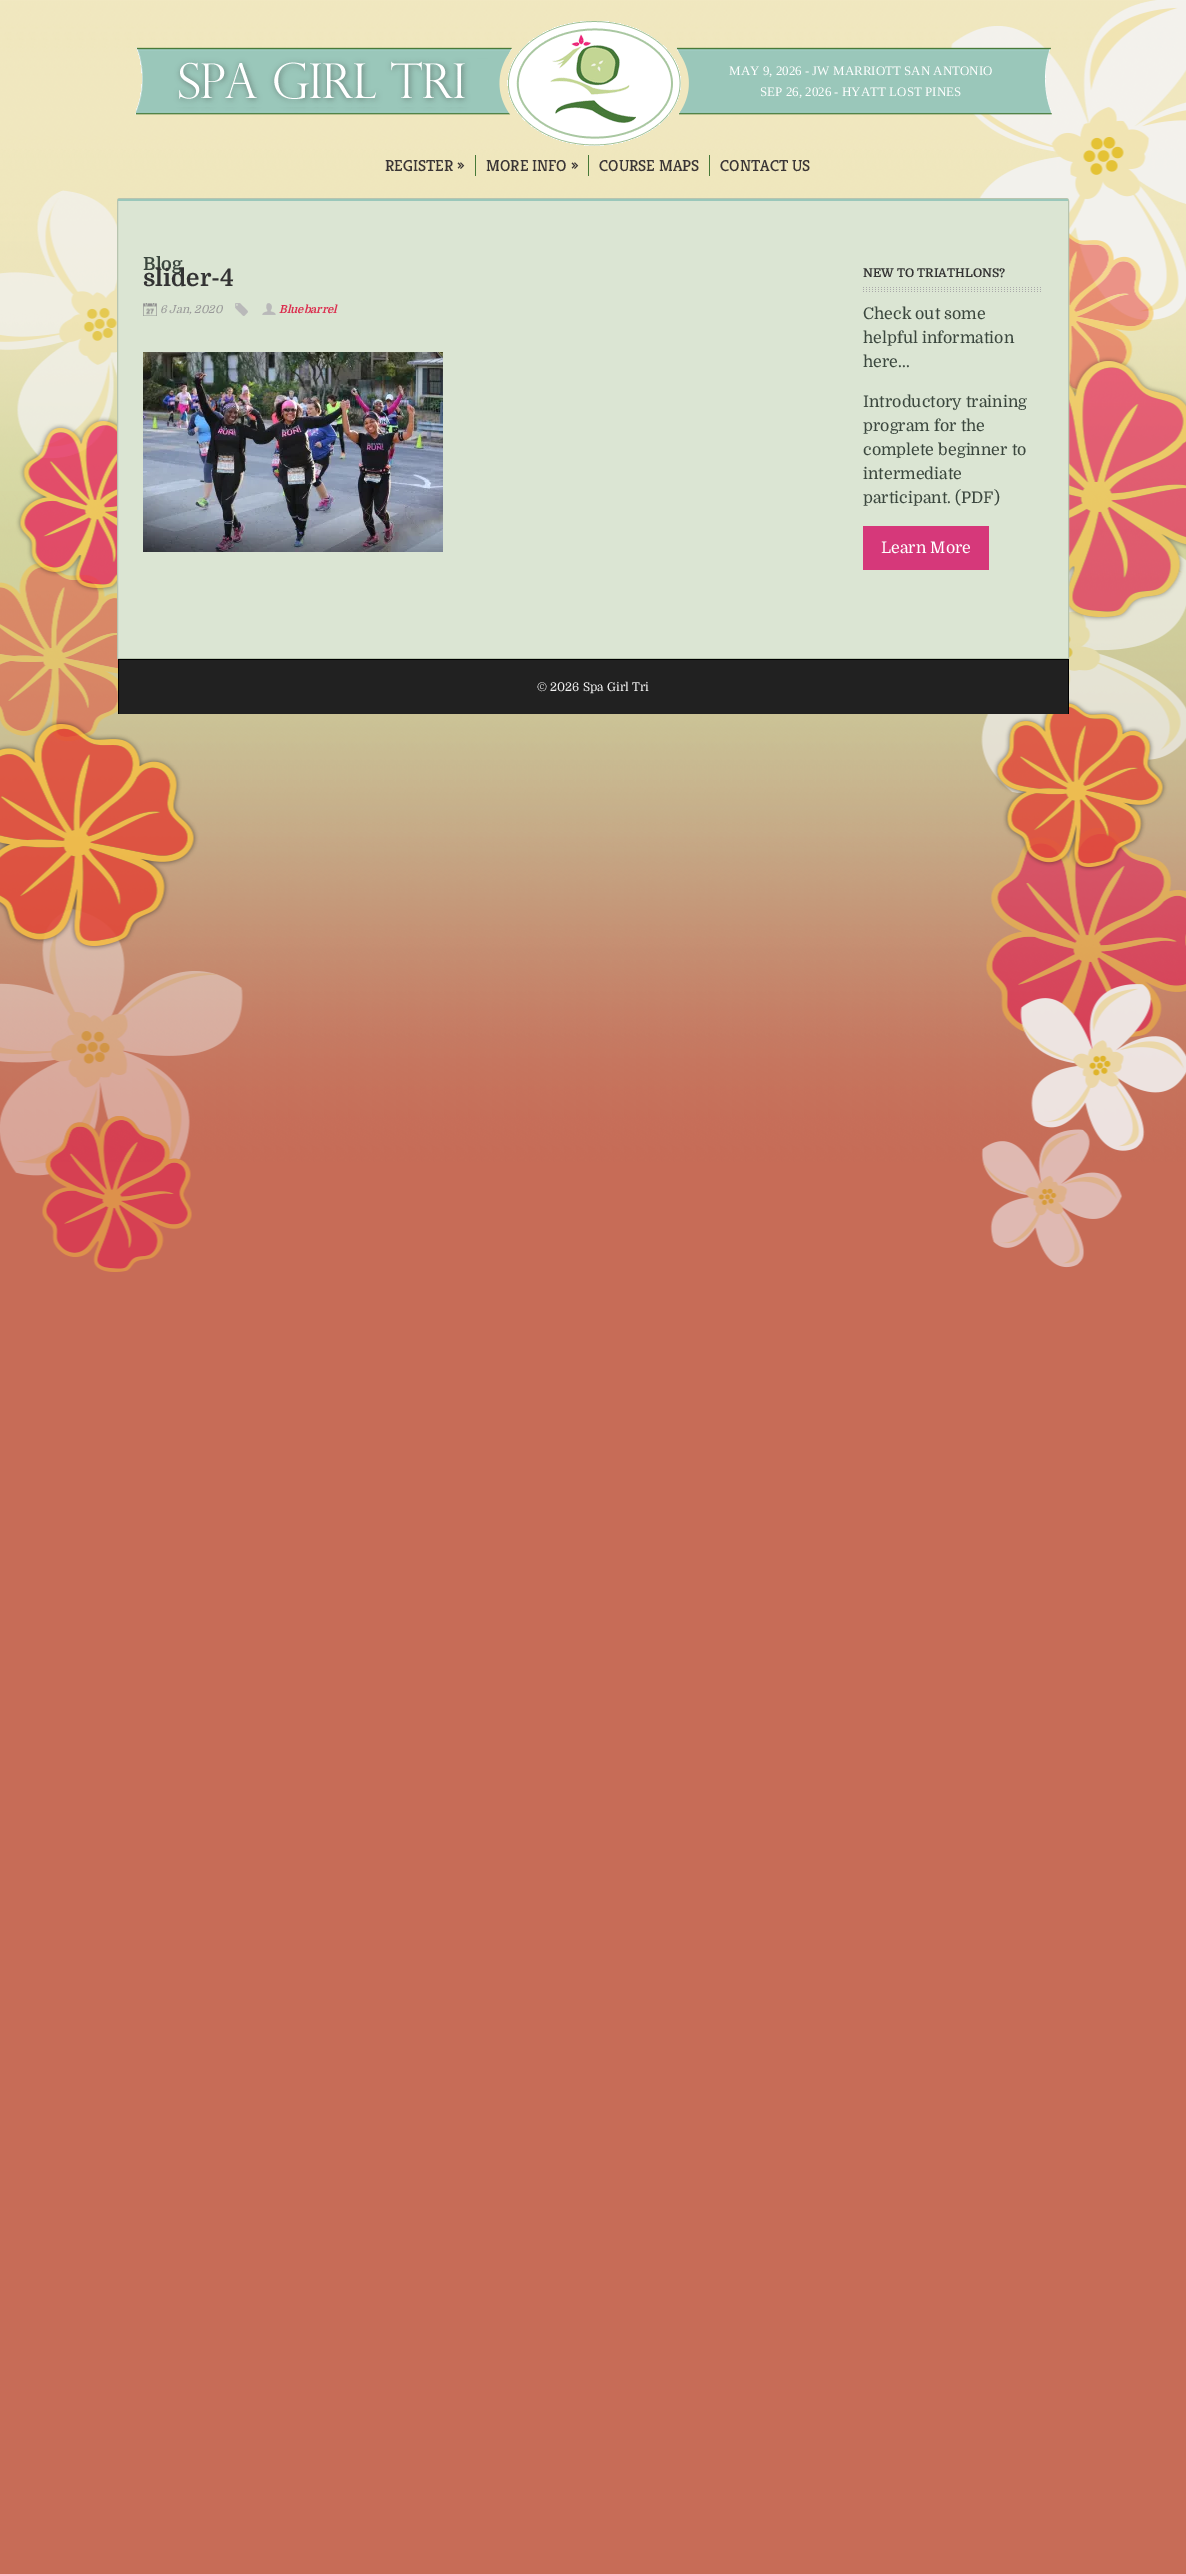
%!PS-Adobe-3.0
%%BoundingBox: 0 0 1186 2574
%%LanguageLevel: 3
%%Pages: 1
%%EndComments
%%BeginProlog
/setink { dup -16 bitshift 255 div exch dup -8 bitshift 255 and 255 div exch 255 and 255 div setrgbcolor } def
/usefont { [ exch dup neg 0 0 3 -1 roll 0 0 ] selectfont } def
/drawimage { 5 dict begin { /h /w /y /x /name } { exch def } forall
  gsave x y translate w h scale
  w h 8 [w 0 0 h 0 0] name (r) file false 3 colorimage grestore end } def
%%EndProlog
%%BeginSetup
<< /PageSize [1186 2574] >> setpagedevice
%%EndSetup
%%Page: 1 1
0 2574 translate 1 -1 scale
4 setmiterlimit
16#C76C57 setink
0 0 1186 2574 rectfill
(img1.raw) 0 0 1186 1272 drawimage
(img2.raw) 135 21 917 125 drawimage
/LiberationSerif-Regular 13 usefont
16#FFFFFF setink
729 75 moveto (MAY 9, 2026 - JW MARRIOTT SAN ANTONIO) show
760 96 moveto (SEP 26, 2026 - HYATT LOST PINES) show
16#467937 setink
475 155 1 21 rectfill
/Kreon-Light 16 usefont
16#3A3535 setink
385 171 moveto (REGISTER ») show
16#467937 setink
588 155 1 21 rectfill
16#3A3535 setink
486 171 moveto (MORE INFO ») show
16#467937 setink
709 155 1 21 rectfill
16#3A3535 setink
599 171 moveto (COURSE MAPS) show
720 171 moveto (CONTACT US) show
16#DBE5D3 setink
120 198.5 moveto 1066 198.5 lineto 1067.5 198.5 1068.5 199.5 1068.5 201 curveto 1068.5 658.5 lineto 117.5 658.5 lineto 117.5 201 lineto 117.5 199.5 118.5 198.5 120 198.5 curveto closepath gsave fill grestore
16#B8C4AF setink
stroke
16#9AC7BA setink
118 199 950 2 rectfill
/Domine-Bold 18 usefont
16#3B473E setink
143 270 moveto (Blog) show
/Domine-Bold 24 usefont
16#333333 setink
143 286 moveto (slider-4) show
(img3.raw) 143 303 14 13 drawimage
/Domine-Italic 11 usefont
16#999999 setink
160 313 moveto (6 Jan, 2020) show
(img4.raw) 235 303 13 13 drawimage
(img5.raw) 262 303 14 12 drawimage
/Domine-BoldItalic 11 usefont
16#DC2D4E setink
279 313 moveto (Bluebarrel) show
(img6.raw) 143 352 300 200 drawimage
(img7.raw) 863 287 178 5 drawimage
/Domine-Bold 12 usefont
16#333333 setink
863 277 moveto (NEW TO TRIATHLONS?) show
/Domine-Regular 16 usefont
16#3B473E setink
[
    [(Check out some) 863 319]
    [(helpful information) 863 343]
    [(here...) 863 367]
    [(Introductory training) 863 407]
    [(program for the) 863 431]
    [(complete beginner to) 863 455]
    [(intermediate) 863 479]
    [(participant. \(PDF\)) 863 503]
] { aload pop moveto show } forall
16#D6387A setink
863 526 126 44 rectfill
16#FFFFFF setink
881 553 moveto (Learn More) show
[
    [119 660 949 54 16#212121]
    [118 659 951 1 16#000000]
    [1068 659 1 55 16#000000]
    [118 659 1 55 16#000000]
] { aload pop setink rectfill } forall
/Domine-Regular 12 usefont
16#EEEEEE setink
537 691 moveto (© 2026 Spa Girl Tri) show
showpage
%%EOF
